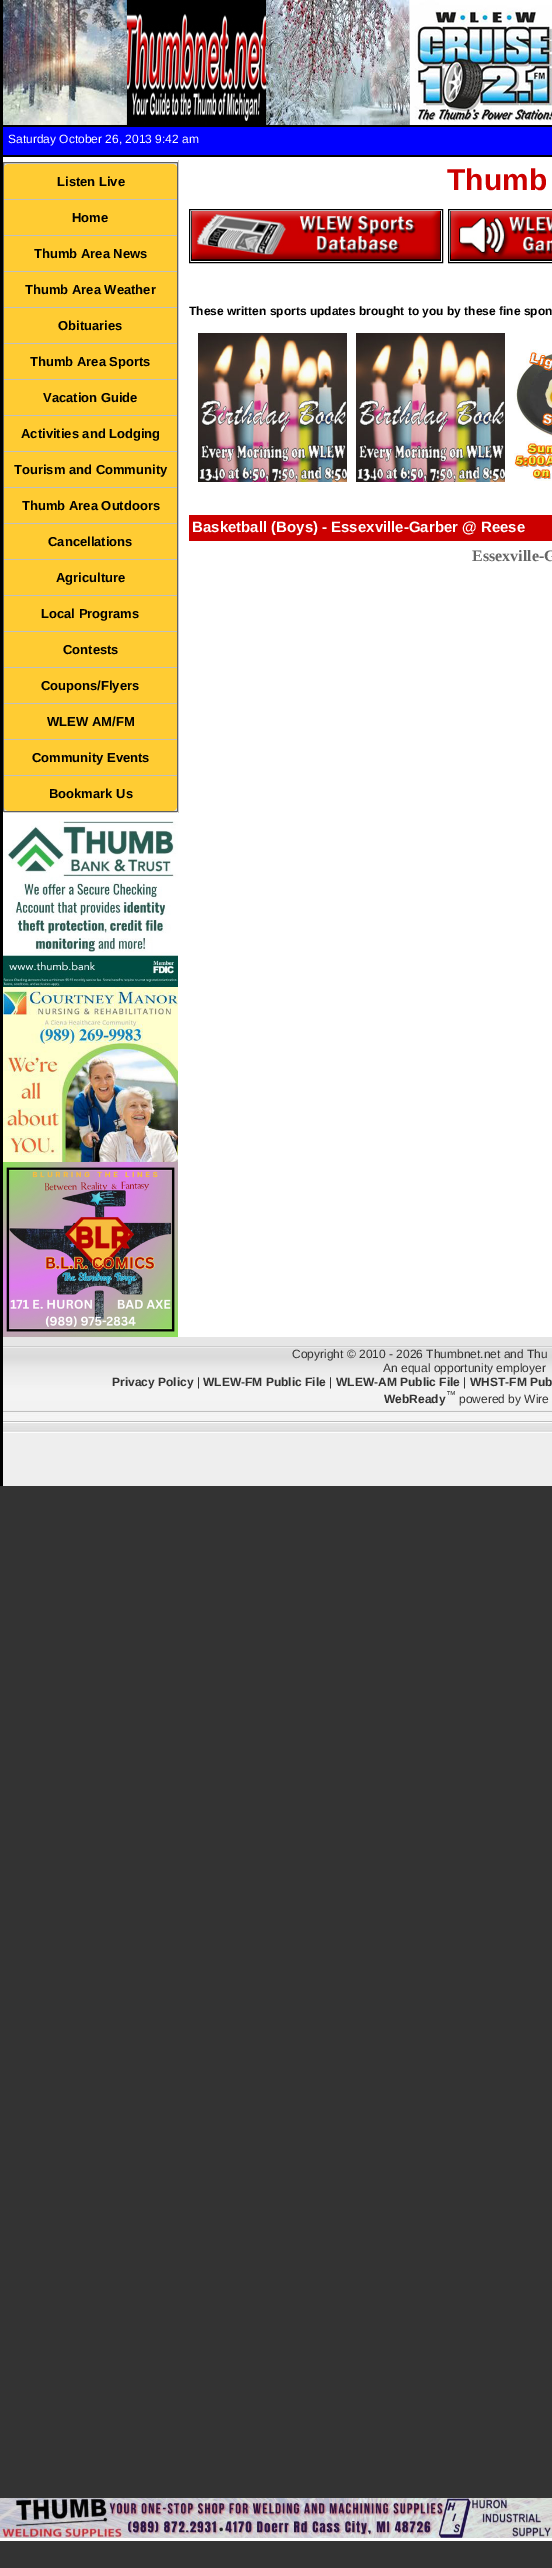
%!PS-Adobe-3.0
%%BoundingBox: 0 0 552 2568
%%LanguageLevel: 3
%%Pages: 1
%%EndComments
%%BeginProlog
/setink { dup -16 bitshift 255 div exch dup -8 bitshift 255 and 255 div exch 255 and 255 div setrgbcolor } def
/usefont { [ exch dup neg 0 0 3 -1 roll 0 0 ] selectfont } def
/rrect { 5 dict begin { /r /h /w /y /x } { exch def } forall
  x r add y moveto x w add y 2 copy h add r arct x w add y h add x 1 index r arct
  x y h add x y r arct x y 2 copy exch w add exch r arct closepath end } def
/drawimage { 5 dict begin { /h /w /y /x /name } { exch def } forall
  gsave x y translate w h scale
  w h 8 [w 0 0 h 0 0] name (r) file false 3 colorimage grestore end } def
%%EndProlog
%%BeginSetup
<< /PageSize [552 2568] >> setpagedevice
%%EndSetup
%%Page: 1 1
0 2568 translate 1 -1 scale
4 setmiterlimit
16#333333 setink
0 0 552 2568 rectfill
16#FFFFFF setink
3 157 549 1180 rectfill
16#000000 setink
0 0 3 1486 rectfill
(img1.raw) 3 0 549 125 drawimage
[
    [3 127 549 28 16#0000FF]
    [3 125 549 2 16#000000]
    [3 155 549 2 16#000000]
] { aload pop setink rectfill } forall
/LiberationSans-Regular 12 usefont
16#FFFFFF setink
8 143 moveto (Saturday October 26, 2013 9:42 am) show
16#DEDEDE setink
3.5 162.5 174 649 0.5 rrect gsave fill grestore
16#5F5F5F setink
stroke
16#FFCC33 setink
9 164 moveto 172 164 lineto 175 164 177 166 177 168 curveto 177 199 lineto 4 199 lineto 4 168 lineto 4 166 6 164 9 164 curveto closepath fill
16#C0C0C0 setink
7 163 168 1 rectfill
/LiberationSans-Bold 13 usefont
16#000000 setink
57 186 moveto (Listen Live) show
16#FFCC33 setink
4 200 173 35 rectfill
16#C0C0C0 setink
4 199 173 1 rectfill
16#000000 setink
72 222 moveto (Home) show
16#FFCC33 setink
4 236 173 35 rectfill
16#C0C0C0 setink
4 235 173 1 rectfill
16#000000 setink
34 258 moveto (Thumb Area News) show
16#FFCC33 setink
4 272 173 35 rectfill
16#C0C0C0 setink
4 271 173 1 rectfill
16#000000 setink
25 294 moveto (Thumb Area Weather) show
16#FFCC33 setink
4 308 173 35 rectfill
16#C0C0C0 setink
4 307 173 1 rectfill
16#000000 setink
58 330 moveto (Obituaries) show
16#FFCC33 setink
4 344 173 35 rectfill
16#C0C0C0 setink
4 343 173 1 rectfill
16#000000 setink
30 366 moveto (Thumb Area Sports) show
16#FFCC33 setink
4 380 173 35 rectfill
16#C0C0C0 setink
4 379 173 1 rectfill
16#000000 setink
43 402 moveto (Vacation Guide) show
16#FFCC33 setink
4 416 173 35 rectfill
16#C0C0C0 setink
4 415 173 1 rectfill
16#000000 setink
21 438 moveto (Activities and Lodging) show
16#FFCC33 setink
4 452 173 35 rectfill
16#C0C0C0 setink
4 451 173 1 rectfill
16#000000 setink
14 474 moveto (Tourism and Community) show
16#FFCC33 setink
4 488 173 35 rectfill
16#C0C0C0 setink
4 487 173 1 rectfill
16#000000 setink
22 510 moveto (Thumb Area Outdoors) show
16#FFCC33 setink
4 524 173 35 rectfill
16#C0C0C0 setink
4 523 173 1 rectfill
16#000000 setink
48 546 moveto (Cancellations) show
16#FFCC33 setink
4 560 173 35 rectfill
16#C0C0C0 setink
4 559 173 1 rectfill
16#000000 setink
56 582 moveto (Agriculture) show
16#FFCC33 setink
4 596 173 35 rectfill
16#C0C0C0 setink
4 595 173 1 rectfill
16#000000 setink
41 618 moveto (Local Programs) show
16#FFCC33 setink
4 632 173 35 rectfill
16#C0C0C0 setink
4 631 173 1 rectfill
16#000000 setink
63 654 moveto (Contests) show
16#FFCC33 setink
4 668 173 35 rectfill
16#C0C0C0 setink
4 667 173 1 rectfill
16#000000 setink
41 690 moveto (Coupons/Flyers) show
16#FFCC33 setink
4 704 173 35 rectfill
16#C0C0C0 setink
4 703 173 1 rectfill
16#000000 setink
47 726 moveto (WLEW AM/FM) show
16#FFCC33 setink
4 740 173 35 rectfill
16#C0C0C0 setink
4 739 173 1 rectfill
16#000000 setink
32 762 moveto (Community Events) show
16#FFCC33 setink
4 776 moveto 177 776 lineto 177 806 lineto 177 809 175 811 172 811 curveto 9 811 lineto 6 811 4 809 4 806 curveto closepath fill
16#C0C0C0 setink
4 775 173 1 rectfill
16#000000 setink
49 798 moveto (Bookmark Us) show
(img2.raw) 3 821 175 166 drawimage
(img3.raw) 3 987 175 175 drawimage
(img4.raw) 3 1162 175 175 drawimage
16#CCCCCC setink
178 160 1 653 rectfill
/LiberationSans-Bold 30 usefont
16#CC0000 setink
447 190 moveto (Thumb) show
16#000000 setink
189.5 209.5 253 53 rectstroke
(img5.raw) 191 211 250 50 drawimage
448.5 209.5 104 53 rectstroke
(img6.raw) 450 211 102 50 drawimage
/LiberationSans-Bold 12 usefont
189 315 moveto (These written sports updates brought to you by these fine spon) show
(img7.raw) 198 333 149 149 drawimage
(img7.raw) 356 333 149 149 drawimage
(img8.raw) 514 349 38 132 drawimage
16#CC0000 setink
189 515 363 26 rectfill
/LiberationSans-Bold 15 usefont
16#FFFFFF setink
192 532 moveto (Basketball \(Boys\) - Essexville-Garber @ Reese) show
/LiberationSerif-Bold 16 usefont
16#666666 setink
472 561 moveto (Essexville-G) show
16#EEEEEE setink
3 1433 549 53 rectfill
(img9.raw) 3 1337 549 96 drawimage
/LiberationSans-Regular 12 usefont
16#333333 setink
292 1358 moveto (Copyright © 2010 - 2026 Thumbnet.net and Thu) show
383 1372 moveto (An equal opportunity employer) show
/LiberationSans-Bold 12 usefont
112 1386 moveto (Privacy Policy) show
/LiberationSans-Regular 12 usefont
197 1386 moveto (|) show
/LiberationSans-Bold 12 usefont
203 1386 moveto (WLEW-FM Public File) show
/LiberationSans-Regular 12 usefont
329 1386 moveto (|) show
/LiberationSans-Bold 12 usefont
336 1386 moveto (WLEW-AM Public File) show
/LiberationSans-Regular 12 usefont
463 1386 moveto (|) show
/LiberationSans-Bold 12 usefont
470 1386 moveto (WHST-FM Pub) show
/LiberationSans-Regular 10 usefont
446 1398 moveto (™) show
/LiberationSans-Bold 12 usefont
384 1403 moveto (WebReady) show
/LiberationSans-Regular 12 usefont
459 1403 moveto (powered by Wire) show
16#FFFFFF setink
0 2538 552 3 rectfill
(img10.raw) 0 2498 552 40 drawimage
showpage
%%EOF
